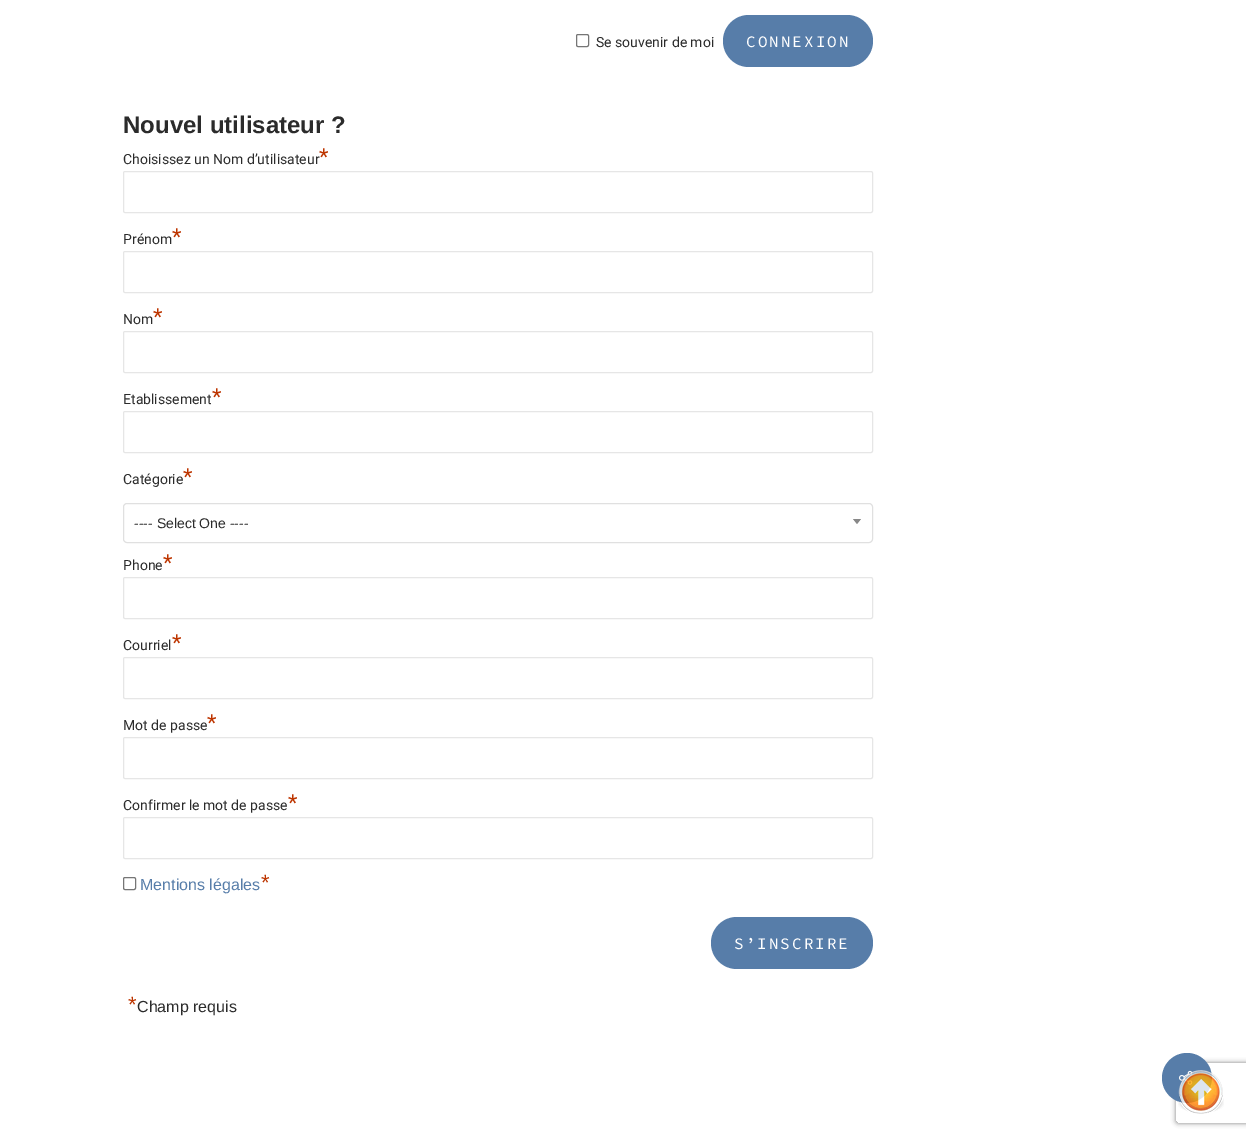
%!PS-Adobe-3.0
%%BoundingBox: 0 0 1246 1137
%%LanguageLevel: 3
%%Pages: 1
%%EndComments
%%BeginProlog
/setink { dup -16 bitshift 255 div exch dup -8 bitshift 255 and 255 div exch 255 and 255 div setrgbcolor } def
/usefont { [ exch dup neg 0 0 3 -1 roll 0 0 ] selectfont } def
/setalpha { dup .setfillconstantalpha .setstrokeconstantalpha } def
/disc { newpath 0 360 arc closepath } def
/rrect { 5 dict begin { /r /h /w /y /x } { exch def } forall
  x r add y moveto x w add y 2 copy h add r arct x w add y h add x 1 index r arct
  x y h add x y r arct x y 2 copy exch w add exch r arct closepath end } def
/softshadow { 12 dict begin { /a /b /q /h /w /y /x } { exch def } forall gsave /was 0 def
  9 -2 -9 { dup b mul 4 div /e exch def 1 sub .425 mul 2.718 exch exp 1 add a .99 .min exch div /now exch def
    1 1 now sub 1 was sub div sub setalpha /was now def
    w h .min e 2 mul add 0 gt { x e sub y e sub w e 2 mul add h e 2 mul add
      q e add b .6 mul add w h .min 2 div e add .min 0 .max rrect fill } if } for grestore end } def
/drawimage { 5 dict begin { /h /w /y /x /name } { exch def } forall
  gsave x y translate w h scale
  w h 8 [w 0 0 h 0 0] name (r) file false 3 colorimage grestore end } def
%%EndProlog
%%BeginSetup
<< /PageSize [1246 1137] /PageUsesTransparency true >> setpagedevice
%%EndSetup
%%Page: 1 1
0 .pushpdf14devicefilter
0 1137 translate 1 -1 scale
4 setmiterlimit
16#FFFFFF setink
0 0 1246 1137 rectfill
16#767676 setink
576.5 34.5 12 12 1.5 rrect stroke
/Roboto-Regular 14 usefont
16#2B2B2B setink
596 47 moveto (Se souvenir de moi) show
16#577DA9 setink
723 15 150 52 26 rrect fill
/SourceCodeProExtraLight-ExtraLight 16 usefont
16#FFFFFF setink
746 47 moveto 2 0 (CONNEXION) ashow
/LiberationSans-Bold 24 usefont
16#2B2B2B setink
123 133 moveto (Nouvel utilisateur ?) show
/Roboto-Regular 14 usefont
123 164 moveto (Choisissez un Nom d’utilisateur) show
/Roboto-Regular 22 usefont
16#BD3500 setink
319 164 moveto (*) show
16#E6E6E6 setink
123.5 171.5 749 41 1.5 rrect stroke
/Roboto-Regular 14 usefont
16#2B2B2B setink
123 244 moveto (Prénom) show
/Roboto-Regular 22 usefont
16#BD3500 setink
172 244 moveto (*) show
16#E6E6E6 setink
123.5 251.5 749 41 1.5 rrect stroke
16#BD3500 setink
153 324 moveto (*) show
/Roboto-Regular 14 usefont
16#2B2B2B setink
123 324 moveto (Nom) show
16#E6E6E6 setink
123.5 331.5 749 41 1.5 rrect stroke
16#2B2B2B setink
123 404 moveto (Etablissement) show
/Roboto-Regular 22 usefont
16#BD3500 setink
212 404 moveto (*) show
16#E6E6E6 setink
123.5 411.5 749 41 1.5 rrect stroke
/Roboto-Regular 14 usefont
16#2B2B2B setink
123 484 moveto (Catégorie) show
/Roboto-Regular 22 usefont
16#BD3500 setink
183 484 moveto (*) show
16#E0E0E0 setink
123.5 503.5 749 39 3.5 rrect stroke
/LiberationSans-Regular 14 usefont
16#2B2B2B setink
134 528 moveto (---- Select One ----) show
16#888888 setink
853 519 moveto 861 519 lineto 857 524 lineto closepath fill
/Roboto-Regular 14 usefont
16#2B2B2B setink
123 570 moveto (Phone) show
/Roboto-Regular 22 usefont
16#BD3500 setink
163 570 moveto (*) show
16#E6E6E6 setink
123.5 577.5 749 41 1.5 rrect stroke
/Roboto-Regular 14 usefont
16#2B2B2B setink
123 650 moveto (Courriel) show
/Roboto-Regular 22 usefont
16#BD3500 setink
172 650 moveto (*) show
16#E6E6E6 setink
123.5 657.5 749 41 1.5 rrect stroke
/Roboto-Regular 14 usefont
16#2B2B2B setink
123 730 moveto (Mot de passe) show
/Roboto-Regular 22 usefont
16#BD3500 setink
207 730 moveto (*) show
16#E6E6E6 setink
123.5 737.5 749 41 1.5 rrect stroke
/Roboto-Regular 14 usefont
16#2B2B2B setink
123 810 moveto (Confirmer le mot de passe) show
/Roboto-Regular 22 usefont
16#BD3500 setink
288 810 moveto (*) show
16#E6E6E6 setink
123.5 817.5 749 41 1.5 rrect stroke
16#767676 setink
123.5 877.5 12 12 1.5 rrect stroke
/LiberationSans-Regular 16 usefont
16#577DA9 setink
140 890 moveto (Mentions légales) show
/LiberationSans-Regular 22 usefont
16#BD3500 setink
261 890 moveto (*) show
16#577DA9 setink
711 917 162 52 26 rrect fill
/SourceCodeProExtraLight-ExtraLight 16 usefont
16#FFFFFF setink
734 949 moveto 2 0 (S’INSCRIRE) ashow
/LiberationSans-Regular 22 usefont
16#BD3500 setink
128 1012 moveto (*) show
/LiberationSans-Regular 16 usefont
16#2B2B2B setink
137 1012 moveto (Champ requis) show
gsave
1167 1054 moveto 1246 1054 lineto 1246 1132 lineto 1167 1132 lineto closepath 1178 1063 moveto 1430 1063 lineto 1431 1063 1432 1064 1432 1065 curveto 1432 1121 lineto 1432 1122 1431 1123 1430 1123 curveto 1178 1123 lineto 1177 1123 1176 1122 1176 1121 curveto 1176 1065 lineto 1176 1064 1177 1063 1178 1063 curveto closepath eoclip newpath
16#808080 setink
1176 1063 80 60 2 2.5 1 softshadow
grestore
16#577DA9 setink
1187 1078 25 disc fill
(img1.raw) 1179 1070 14 15 drawimage
(img2.raw) 1178 1070 46 44 drawimage
.poppdf14devicefilter showpage
%%EOF
